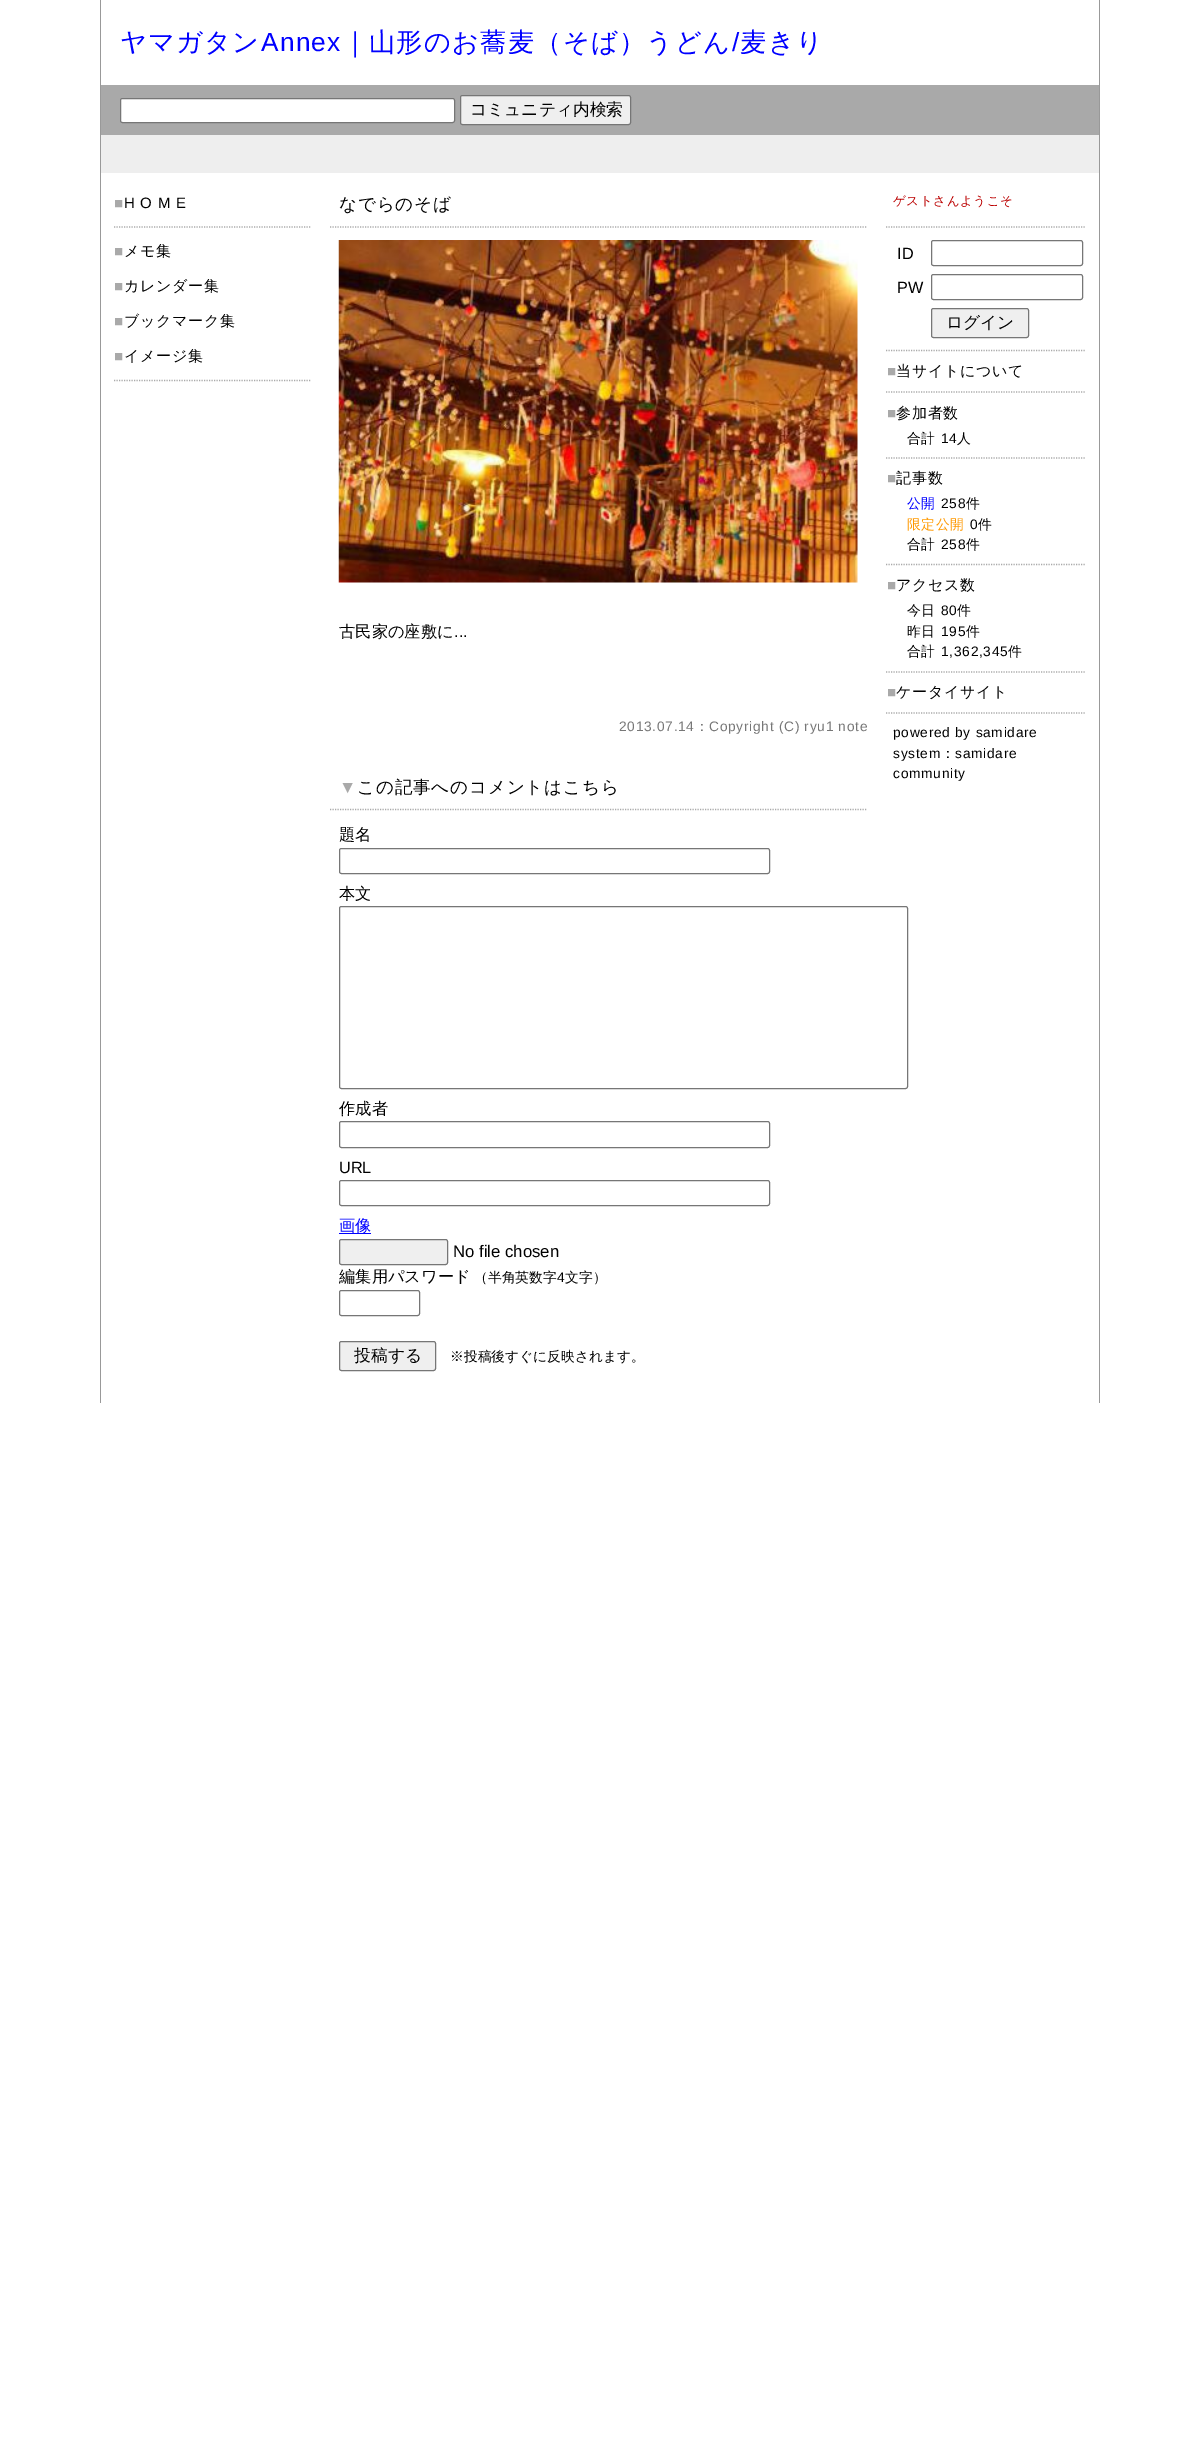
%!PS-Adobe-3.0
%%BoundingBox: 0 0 1200 2446
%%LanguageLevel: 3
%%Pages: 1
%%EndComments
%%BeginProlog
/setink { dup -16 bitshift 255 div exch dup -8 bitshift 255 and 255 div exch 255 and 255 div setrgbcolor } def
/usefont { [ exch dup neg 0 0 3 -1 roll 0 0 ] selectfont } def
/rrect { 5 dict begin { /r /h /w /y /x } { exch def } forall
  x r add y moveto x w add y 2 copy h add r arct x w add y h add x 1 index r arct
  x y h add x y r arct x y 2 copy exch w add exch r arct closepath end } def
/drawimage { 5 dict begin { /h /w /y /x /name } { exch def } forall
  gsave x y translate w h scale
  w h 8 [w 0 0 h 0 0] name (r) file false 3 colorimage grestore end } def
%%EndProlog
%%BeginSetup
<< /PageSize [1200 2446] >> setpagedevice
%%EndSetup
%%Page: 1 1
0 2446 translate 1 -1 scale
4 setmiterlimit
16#FFFFFF setink
0 0 1200 2446 rectfill
16#999999 setink
1099 0 1 1403 rectfill
100 0 1 1403 rectfill
/WenQuanYiZenHei-Medium 26.25 usefont
16#0000FF setink
120 51 moveto 1.25 0 (ヤマガタン) ashow
/LiberationSans-Regular 26.25 usefont
261 51 moveto 1.25 0 (Annex) ashow
/WenQuanYiZenHei-Medium 26.25 usefont
342 51 moveto 1.25 0 (｜山形のお蕎麦（そば）うどん) ashow
/LiberationSans-Regular 26.25 usefont
732 51 moveto 1.25 0 (/) ashow
/WenQuanYiZenHei-Medium 26.25 usefont
740 51 moveto 1.25 0 (麦きり) ashow
16#A9A9A9 setink
101 85 998 50 rectfill
16#FFFFFF setink
120.5 98.5 334 24 2 rrect gsave fill grestore
16#767676 setink
stroke
16#EFEFEF setink
460.5 95.5 170 29 2 rrect gsave fill grestore
16#767676 setink
stroke
/WenQuanYiZenHei-Medium 16.75 usefont
16#000000 setink
470 115 moveto (コミュニティ内検索) show
16#EEEEEE setink
101 135 998 38 rectfill
/LiberationSans-Regular 15 usefont
16#A9A9A9 setink
114 208 moveto 0.75 0 (■) ashow
16#000000 setink
124 208 moveto 0.75 0 (H O M E) ashow
16#AAAAAA setink
1.2 setlinewidth
[1.25 1.25] 0 setdash
114 227 moveto 311 227 lineto stroke
16#A9A9A9 setink
114 256 moveto 0.75 0 (■) ashow
/WenQuanYiZenHei-Medium 15 usefont
16#000000 setink
124 256 moveto 0.75 0 (メモ集) ashow
/LiberationSans-Regular 15 usefont
16#A9A9A9 setink
114 291 moveto 0.75 0 (■) ashow
/WenQuanYiZenHei-Medium 15 usefont
16#000000 setink
124 291 moveto 0.75 0 (カレンダー集) ashow
/LiberationSans-Regular 15 usefont
16#A9A9A9 setink
114 326 moveto 0.75 0 (■) ashow
/WenQuanYiZenHei-Medium 15 usefont
16#000000 setink
124 326 moveto 0.75 0 (ブックマーク集) ashow
/LiberationSans-Regular 15 usefont
16#A9A9A9 setink
114 361 moveto 0.75 0 (■) ashow
/WenQuanYiZenHei-Medium 15 usefont
16#000000 setink
124 361 moveto 0.75 0 (イメージ集) ashow
16#AAAAAA setink
114 380.5 moveto 311 380.5 lineto stroke
330 227 moveto 867.5 227 lineto stroke
/WenQuanYiZenHei-Medium 17.5 usefont
16#000000 setink
339 210 moveto 0.9 0 (なでらのそば) ashow
(img1.raw) 338 240 520 343 drawimage
/WenQuanYiZenHei-Medium 16.25 usefont
339 637 moveto (古民家の座敷に) show
/LiberationSans-Regular 16.25 usefont
454 637 moveto (...) show
/LiberationSans-Regular 13.75 usefont
16#777777 setink
619 731 moveto 0.7 0 (2013.07.14) ashow
/WenQuanYiZenHei-Medium 13.75 usefont
695 731 moveto 0.7 0 (：) ashow
/LiberationSans-Regular 13.75 usefont
709 731 moveto 0.7 0 (Copyright \(C\) ryu1 note) ashow
16#AAAAAA setink
330 809.5 moveto 867.5 809.5 lineto stroke
/LiberationSans-Regular 17.5 usefont
16#A9A9A9 setink
339 793 moveto 0.9 0 (▼) ashow
/WenQuanYiZenHei-Medium 17.5 usefont
16#000000 setink
357 793 moveto 0.9 0 (この記事へのコメントはこちら) ashow
/WenQuanYiZenHei-Medium 16.25 usefont
339 840 moveto (題名) show
16#767676 setink
1 setlinewidth
[] 0 setdash
339.5 848.5 430 25 2 rrect stroke
16#000000 setink
339 899 moveto (本文) show
16#767676 setink
339.5 906.5 568 182 2 rrect stroke
16#000000 setink
339 1114 moveto (作成者) show
16#767676 setink
339.5 1121.5 430 26 2 rrect stroke
/LiberationSans-Regular 16.25 usefont
16#000000 setink
339 1173 moveto (URL) show
16#767676 setink
339.5 1180.5 430 25 2 rrect stroke
16#0000FF setink
339 1233 32 1 rectfill
/WenQuanYiZenHei-Medium 16.25 usefont
339 1231 moveto (画像) show
16#EFEFEF setink
339.5 1239.5 108 25 2 rrect gsave fill grestore
16#767676 setink
stroke
/LiberationSans-Regular 16.75 usefont
16#000000 setink
453 1257 moveto (No file chosen) show
/WenQuanYiZenHei-Medium 16.25 usefont
339 1282 moveto (編集用パスワード) show
/WenQuanYiZenHei-Medium 13.75 usefont
474 1282 moveto (（半角英数字) show
/LiberationSans-Regular 13.75 usefont
557 1282 moveto (4) show
/WenQuanYiZenHei-Medium 13.75 usefont
565 1282 moveto (文字）) show
16#767676 setink
339.5 1290.5 80 25 2 rrect stroke
16#EFEFEF setink
339.5 1341.5 96 29 2 rrect gsave fill grestore
16#767676 setink
stroke
/WenQuanYiZenHei-Medium 16.75 usefont
16#000000 setink
354 1361 moveto (投稿する) show
/WenQuanYiZenHei-Medium 13.75 usefont
450 1361 moveto (※投稿後すぐに反映されます。) show
/WenQuanYiZenHei-Medium 12.5 usefont
16#BB0000 setink
893 205 moveto 0.6 0 (ゲストさんようこそ) ashow
16#AAAAAA setink
1.2 setlinewidth
[1.25 1.25] 0 setdash
886 227 moveto 1086 227 lineto stroke
/LiberationSans-Regular 16.25 usefont
16#000000 setink
897 259 moveto (ID) show
16#767676 setink
1 setlinewidth
[] 0 setdash
931.5 240.5 151 25 2 rrect stroke
16#000000 setink
897 293 moveto (PW) show
16#767676 setink
931.5 274.5 151 25 2 rrect stroke
16#EFEFEF setink
931.5 308.5 97 29 2 rrect gsave fill grestore
16#767676 setink
stroke
/WenQuanYiZenHei-Medium 16.75 usefont
16#000000 setink
946 328 moveto (ログイン) show
16#AAAAAA setink
1.2 setlinewidth
[1.25 1.25] 0 setdash
886 350.5 moveto 1086 350.5 lineto stroke
/LiberationSans-Regular 15 usefont
16#A9A9A9 setink
887 376 moveto 0.75 0 (■) ashow
/WenQuanYiZenHei-Medium 15 usefont
16#000000 setink
896 376 moveto 0.75 0 (当サイトについて) ashow
16#AAAAAA setink
886 392 moveto 1086 392 lineto stroke
/LiberationSans-Regular 15 usefont
16#A9A9A9 setink
887 418 moveto 0.75 0 (■) ashow
/WenQuanYiZenHei-Medium 15 usefont
16#000000 setink
896 418 moveto 0.75 0 (参加者数) ashow
/WenQuanYiZenHei-Medium 13.75 usefont
907 443 moveto 0.7 0 (合計) ashow
/LiberationSans-Regular 13.75 usefont
941 443 moveto 0.7 0 (14) ashow
/WenQuanYiZenHei-Medium 13.75 usefont
957 443 moveto 0.7 0 (人) ashow
16#AAAAAA setink
886 458 moveto 1086 458 lineto stroke
/LiberationSans-Regular 15 usefont
16#A9A9A9 setink
887 483 moveto 0.75 0 (■) ashow
/WenQuanYiZenHei-Medium 15 usefont
16#000000 setink
896 483 moveto 0.75 0 (記事数) ashow
/WenQuanYiZenHei-Medium 13.75 usefont
16#0000FF setink
907 508 moveto 0.7 0 (公開) ashow
/LiberationSans-Regular 13.75 usefont
16#000000 setink
941 508 moveto 0.7 0 (258) ashow
/WenQuanYiZenHei-Medium 13.75 usefont
966 508 moveto 0.7 0 (件) ashow
16#FF9900 setink
907 529 moveto 0.7 0 (限定公開) ashow
/LiberationSans-Regular 13.75 usefont
16#000000 setink
970 529 moveto 0.7 0 (0) ashow
/WenQuanYiZenHei-Medium 13.75 usefont
978 529 moveto 0.7 0 (件) ashow
907 549 moveto 0.7 0 (合計) ashow
/LiberationSans-Regular 13.75 usefont
941 549 moveto 0.7 0 (258) ashow
/WenQuanYiZenHei-Medium 13.75 usefont
966 549 moveto 0.7 0 (件) ashow
16#AAAAAA setink
886 564.5 moveto 1086 564.5 lineto stroke
/LiberationSans-Regular 15 usefont
16#A9A9A9 setink
887 590 moveto 0.75 0 (■) ashow
/WenQuanYiZenHei-Medium 15 usefont
16#000000 setink
896 590 moveto 0.75 0 (アクセス数) ashow
/WenQuanYiZenHei-Medium 13.75 usefont
907 615 moveto 0.7 0 (今日) ashow
/LiberationSans-Regular 13.75 usefont
941 615 moveto 0.7 0 (80) ashow
/WenQuanYiZenHei-Medium 13.75 usefont
957 615 moveto 0.7 0 (件) ashow
907 636 moveto 0.7 0 (昨日) ashow
/LiberationSans-Regular 13.75 usefont
941 636 moveto 0.7 0 (195) ashow
/WenQuanYiZenHei-Medium 13.75 usefont
966 636 moveto 0.7 0 (件) ashow
907 656 moveto 0.7 0 (合計) ashow
/LiberationSans-Regular 13.75 usefont
941 656 moveto 0.7 0 (1,362,345) ashow
/WenQuanYiZenHei-Medium 13.75 usefont
1008 656 moveto 0.7 0 (件) ashow
16#AAAAAA setink
886 672 moveto 1086 672 lineto stroke
/LiberationSans-Regular 15 usefont
16#A9A9A9 setink
887 697 moveto 0.75 0 (■) ashow
/WenQuanYiZenHei-Medium 15 usefont
16#000000 setink
896 697 moveto 0.75 0 (ケータイサイト) ashow
16#AAAAAA setink
886 713 moveto 1086 713 lineto stroke
/LiberationSans-Regular 13.75 usefont
16#000000 setink
893 737 moveto 0.7 0 (powered by samidare) ashow
893 758 moveto 0.7 0 (system) ashow
/WenQuanYiZenHei-Medium 13.75 usefont
941 758 moveto 0.7 0 (：) ashow
/LiberationSans-Regular 13.75 usefont
955 758 moveto 0.7 0 (samidare) ashow
893 778 moveto 0.7 0 (community) ashow
showpage
%%EOF
